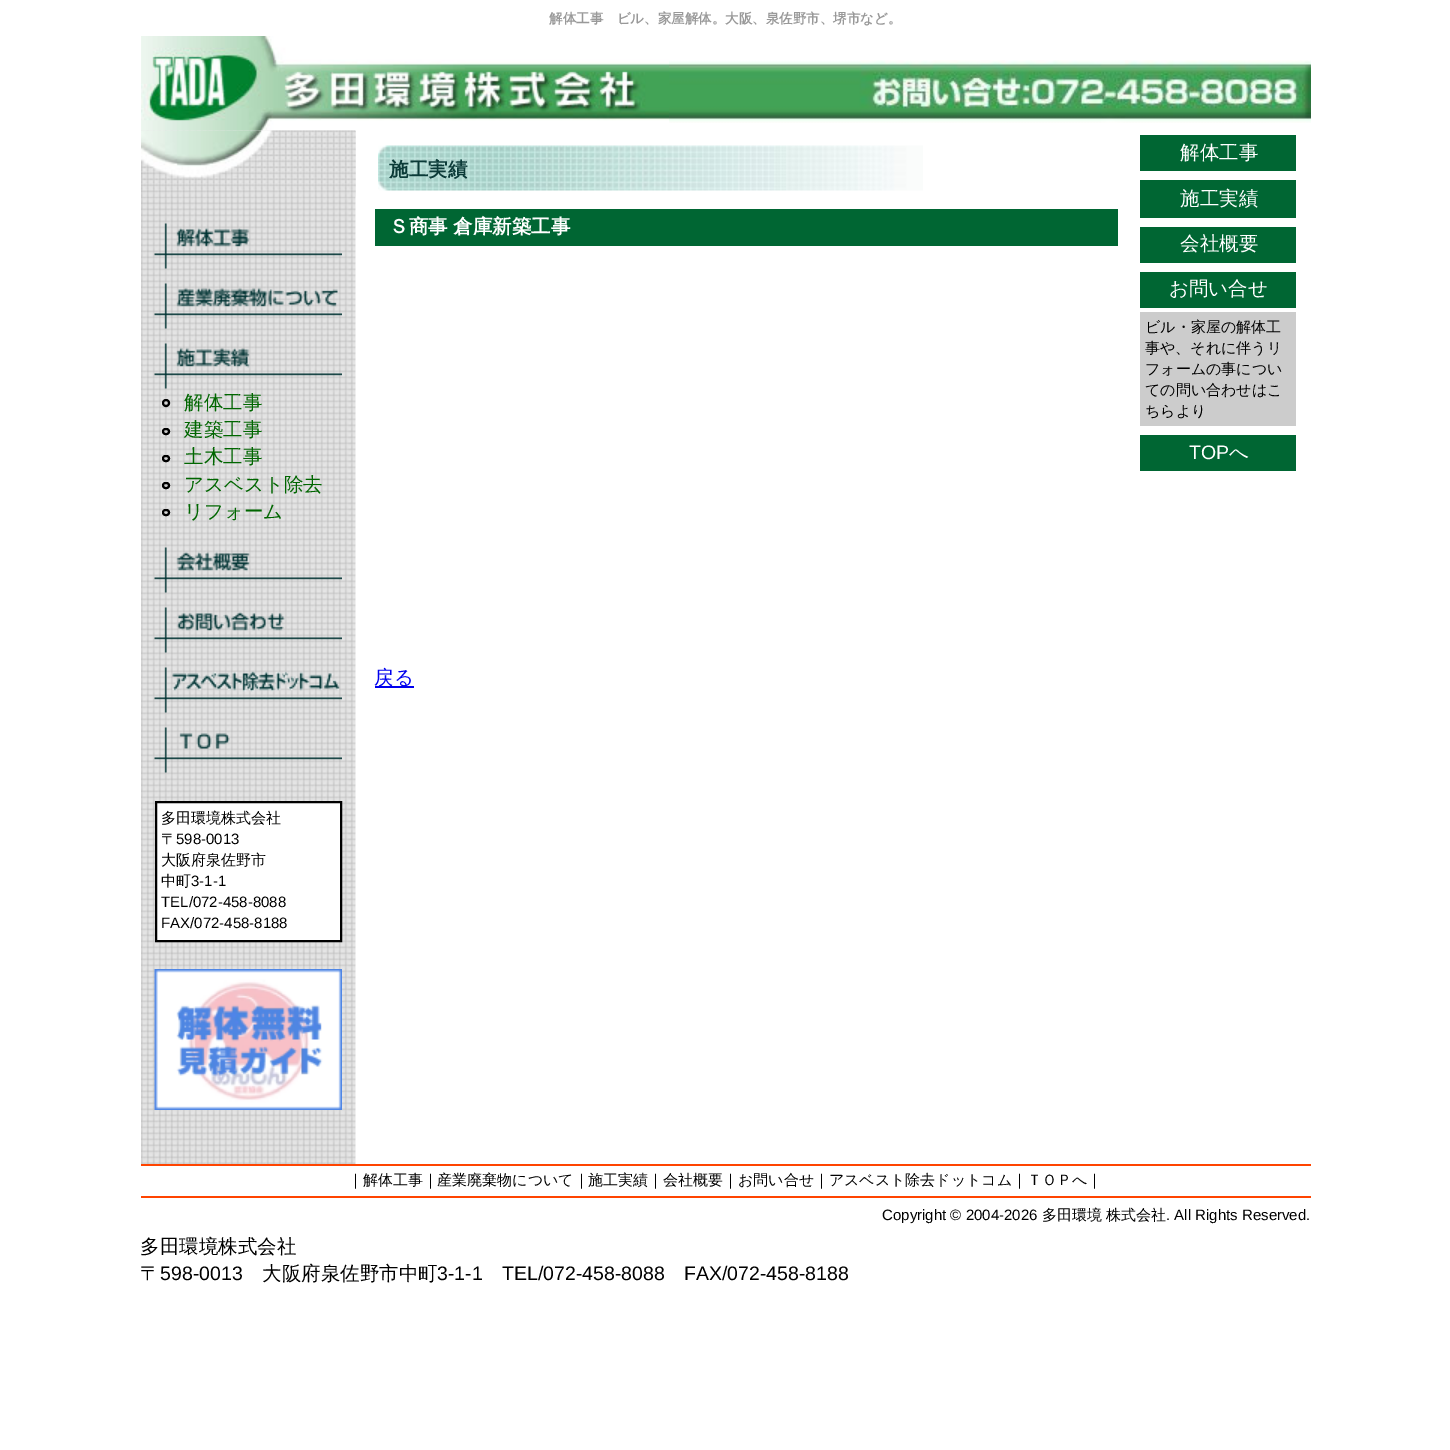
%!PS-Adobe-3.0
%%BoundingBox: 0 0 1450 1450
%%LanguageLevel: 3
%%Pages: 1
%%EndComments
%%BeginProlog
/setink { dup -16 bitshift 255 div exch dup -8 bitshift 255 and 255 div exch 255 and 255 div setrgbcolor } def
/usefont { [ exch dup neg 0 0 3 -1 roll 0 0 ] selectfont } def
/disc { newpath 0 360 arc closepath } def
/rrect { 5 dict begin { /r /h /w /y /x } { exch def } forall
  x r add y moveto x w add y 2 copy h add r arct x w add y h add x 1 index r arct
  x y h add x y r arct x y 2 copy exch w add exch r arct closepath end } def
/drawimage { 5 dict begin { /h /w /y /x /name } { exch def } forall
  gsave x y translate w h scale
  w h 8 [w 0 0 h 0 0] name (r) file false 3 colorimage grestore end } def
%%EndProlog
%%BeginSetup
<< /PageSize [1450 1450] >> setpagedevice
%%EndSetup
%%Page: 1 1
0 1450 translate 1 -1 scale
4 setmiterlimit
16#FFFFFF setink
0 0 1450 1450 rectfill
/WenQuanYiZenHei-Bold 13.5 usefont
16#999999 setink
549 23 moveto (解体工事　ビル、家屋解体。大阪、泉佐野市、堺市など。) show
(img3.raw) 141 130 215 1034 drawimage
(img1.raw) 141 36 528 95 drawimage
(img2.raw) 669 60 642 63 drawimage
(img4.raw) 141 130 215 67 drawimage
(img5.raw) 154 223 188 46 drawimage
(img6.raw) 154 283 188 46 drawimage
(img7.raw) 154 343 188 46 drawimage
16#000000 setink
2 setlinewidth
166 403 3 disc stroke
/WenQuanYiZenHei-Medium 19.5 usefont
16#006600 setink
184 409 moveto (解体工事) show
16#000000 setink
163 429 6 5 2.5 rrect stroke
16#006600 setink
184 436 moveto (建築工事) show
16#000000 setink
163 456 6 5 2.5 rrect stroke
16#006600 setink
184 463 moveto (土木工事) show
16#000000 setink
163 483 6 5 2.5 rrect stroke
16#006600 setink
184 491 moveto (アスベスト除去) show
16#000000 setink
163 510 6 5 2.5 rrect stroke
16#006600 setink
184 518 moveto (リフォーム) show
(img8.raw) 154 547 188 46 drawimage
(img9.raw) 154 607 188 46 drawimage
(img10.raw) 154 667 188 46 drawimage
(img11.raw) 154 727 188 46 drawimage
16#FFFFFF setink
156 802 moveto 341 802 lineto 341 941 lineto 156 941 lineto closepath gsave fill grestore
16#000000 setink
stroke
/WenQuanYiZenHei-Medium 15 usefont
161 823 moveto (多田環境株式会社) show
161 844 moveto (〒) show
/LiberationSans-Regular 15 usefont
176 844 moveto (598-0013) show
/WenQuanYiZenHei-Medium 15 usefont
161 865 moveto (大阪府泉佐野市) show
161 886 moveto (中町) show
/LiberationSans-Regular 15 usefont
[
    [(3-1-1) 191 886]
    [(TEL/072-458-8088) 161 907]
    [(FAX/072-458-8188) 161 928]
] { aload pop moveto show } forall
(img12.raw) 154 969 188 141 drawimage
(img13.raw) 378 145 545 46 drawimage
/WenQuanYiZenHei-Bold 19.5 usefont
16#0B3B38 setink
389 176 moveto (施工実績) show
16#006633 setink
375 209 743 37 rectfill
16#FFFFFF setink
389 233 moveto (Ｓ商事 倉庫新築工事) show
16#0000EE setink
375 686 39 2 rectfill
/WenQuanYiZenHei-Medium 19.5 usefont
374 684 moveto (戻る) show
16#006633 setink
1140 135 156 36 rectfill
16#FFFFFF setink
1180 159 moveto (解体工事) show
16#006633 setink
1140 180 156 38 rectfill
16#FFFFFF setink
1180 205 moveto (施工実績) show
16#006633 setink
1140 227 156 36 rectfill
16#FFFFFF setink
1180 250 moveto (会社概要) show
16#006633 setink
1140 272 156 36 rectfill
16#FFFFFF setink
1169 295 moveto (お問い合せ) show
16#CCCCCC setink
1140 312 156 114 rectfill
/WenQuanYiZenHei-Medium 15 usefont
16#000000 setink
[
    [(ビル・家屋の解体工) 1145 332]
    [(事や、それに伴うリ) 1145 353]
    [(フォームの事につい) 1145 374]
    [(ての問い合わせはこ) 1145 395]
    [(ちらより) 1145 416]
] { aload pop moveto show } forall
16#006633 setink
1140 435 156 36 rectfill
/LiberationSans-Regular 19.5 usefont
16#FFFFFF setink
1189 459 moveto (TOP) show
/WenQuanYiZenHei-Medium 19.5 usefont
1229 459 moveto (へ) show
16#FF4400 setink
141 1164 1170 2 rectfill
141 1196 1170 2 rectfill
/WenQuanYiZenHei-Medium 15 usefont
16#000000 setink
348 1185 moveto (｜解体工事｜産業廃棄物について｜施工実績｜会社概要｜お問い合せ｜アスベスト除去ドットコム｜ＴＯＰへ｜) show
/LiberationSans-Regular 15 usefont
882 1220 moveto (Copyright © 2004-2026) show
/WenQuanYiZenHei-Medium 15 usefont
1042 1220 moveto (多田環境) show
1106 1220 moveto (株式会社) show
/LiberationSans-Regular 15 usefont
1166 1220 moveto (. All Rights Reserved.) show
/WenQuanYiZenHei-Medium 19.5 usefont
140 1253 moveto (多田環境株式会社) show
140 1280 moveto (〒) show
/LiberationSans-Regular 19.5 usefont
160 1280 moveto (598-0013) show
/WenQuanYiZenHei-Medium 19.5 usefont
262 1280 moveto (大阪府泉佐野市中町) show
/LiberationSans-Regular 19.5 usefont
[
    [(3-1-1) 437 1280]
    [(TEL/072-458-8088) 502 1280]
    [(FAX/072-458-8188) 684 1280]
] { aload pop moveto show } forall
showpage
%%EOF
